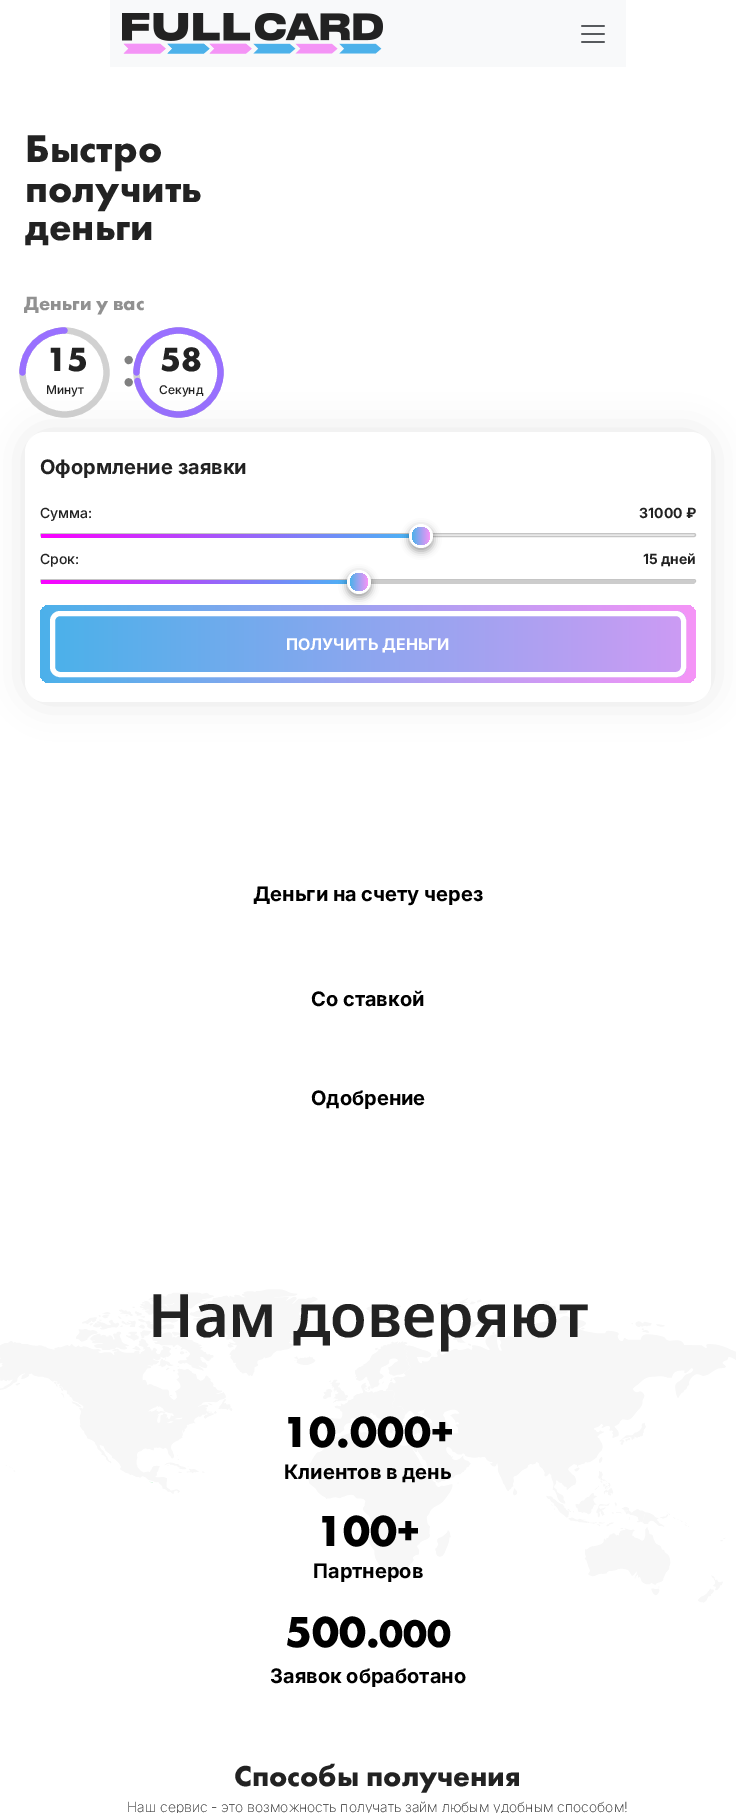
%!PS-Adobe-3.0
%%BoundingBox: 0 0 736 1813
%%LanguageLevel: 3
%%Pages: 1
%%EndComments
%%BeginProlog
/setink { dup -16 bitshift 255 div exch dup -8 bitshift 255 and 255 div exch 255 and 255 div setrgbcolor } def
/usefont { [ exch dup neg 0 0 3 -1 roll 0 0 ] selectfont } def
/setalpha { dup .setfillconstantalpha .setstrokeconstantalpha } def
/disc { newpath 0 360 arc closepath } def
/rrect { 5 dict begin { /r /h /w /y /x } { exch def } forall
  x r add y moveto x w add y 2 copy h add r arct x w add y h add x 1 index r arct
  x y h add x y r arct x y 2 copy exch w add exch r arct closepath end } def
/softshadow { 12 dict begin { /a /b /q /h /w /y /x } { exch def } forall gsave /was 0 def
  9 -2 -9 { dup b mul 4 div /e exch def 1 sub .425 mul 2.718 exch exp 1 add a .99 .min exch div /now exch def
    1 1 now sub 1 was sub div sub setalpha /was now def
    w h .min e 2 mul add 0 gt { x e sub y e sub w e 2 mul add h e 2 mul add
      q e add b .6 mul add w h .min 2 div e add .min 0 .max rrect fill } if } for grestore end } def
/drawimage { 5 dict begin { /h /w /y /x /name } { exch def } forall
  gsave x y translate w h scale
  w h 8 [w 0 0 h 0 0] name (r) file false 3 colorimage grestore end } def
%%EndProlog
%%BeginSetup
<< /PageSize [736 1813] /PageUsesTransparency true >> setpagedevice
%%EndSetup
%%Page: 1 1
0 .pushpdf14devicefilter
0 1813 translate 1 -1 scale
4 setmiterlimit
16#FFFFFF setink
0 0 736 1813 rectfill
16#F8F9FA setink
110 0 516 67 rectfill
(img1.raw) 122 13 261 41 drawimage
(img2.raw) 581 25 24 18 drawimage
/FuturaPT-Bold 40 usefont
16#222222 setink
[
    [(Быстро) 25 162]
    [(получить) 25 202]
    [(деньги) 25 240]
] { aload pop moveto show } forall
/FuturaPT-Bold 20 usefont
16#919191 setink
24 310 moveto (Деньги у вас) show
/FuturaPT-Bold 35 usefont
16#222222 setink
46 371 moveto (15) show
/Inter-Medium 12 usefont
46 394 moveto (Минут) show
16#D1D1D1 setink
6.2 setlinewidth
22.5 372.5 moveto 22.5 349.5 41.5 330.5 64.5 330.5 curveto 87.5 330.5 106.5 349.5 106.5 372.5 curveto 106.5 395.5 87.5 414.5 64.5 414.5 curveto 41.5 414.5 22.5 395.5 22.5 372.5 curveto closepath stroke
16#9970FF setink
1 setlinecap
22.5 372.5 moveto 22.5 349.5 41.5 330.5 64.5 330.5 curveto stroke
/FuturaPT-Bold 35 usefont
16#222222 setink
160 371 moveto (58) show
/Inter-Medium 12 usefont
159 394 moveto (Секунд) show
16#D1D1D1 setink
0 setlinecap
136.5 372.5 moveto 136.5 349.5 155.5 330.5 178.5 330.5 curveto 201.5 330.5 220.5 349.5 220.5 372.5 curveto 220.5 395.5 201.5 414.5 178.5 414.5 curveto 155.5 414.5 136.5 395.5 136.5 372.5 curveto closepath stroke
16#9970FF setink
1 setlinecap
136.5 372.5 moveto 136.5 349.5 155.5 330.5 178.5 330.5 curveto 201.5 330.5 220.5 349.5 220.5 372.5 curveto 220.5 395.5 201.5 414.5 178.5 414.5 curveto 158.5 414.5 141.5 400 137.5 381 curveto stroke
/Inter-Medium 58 usefont
16#808080 setink
120 386 moveto (:) show
16#000000 setink
25 432 686 270 20 17.5 0.1 softshadow
16#FFFFFF setink
25 432 686 270 20 rrect fill
/Inter-Bold 20 usefont
16#222222 setink
40 474 moveto (Оформление заявки) show
/Inter-Medium 14 usefont
40 518 moveto (Сумма:) show
/Inter-Bold 14 usefont
639 518 moveto (31000 ₽) show
16#E8E8E8 setink
40.5 533.5 655 3 1.5 rrect gsave fill grestore
16#C5C5C5 setink
1 setlinewidth
0 setlinecap
stroke
gsave 41 534 378 4 2 rrect clip newpath
<< /ShadingType 2 /ColorSpace /DeviceRGB /Coords [41 536 419 536] /Extend [true true] /Function << /FunctionType 3 /Domain [0 1] /Functions [<< /FunctionType 2 /Domain [0 1] /C0 [0.969 0.016 1] /C1 [0.969 0.016 1] /N 1 >> << /FunctionType 2 /Domain [0 1] /C0 [0.969 0.016 1] /C1 [0.278 0.722 0.961] /N 1 >>] /Bounds [0.03] /Encode [0 1 0 1] >> >> shfill grestore
16#000000 setink
409 527 24 24 12 4 0.4 softshadow
16#FFFFFF setink
421 536 12 disc fill
gsave 421 536 9 disc clip newpath
<< /ShadingType 2 /ColorSpace /DeviceRGB /Coords [412 536 430 536] /Extend [true true] /Function << /FunctionType 2 /Domain [0 1] /C0 [0.298 0.694 0.918] /C1 [0.961 0.58 0.969] /N 1 >> >> shfill grestore
/Inter-Medium 14 usefont
16#222222 setink
40 564 moveto (Срок:) show
/Inter-Bold 14 usefont
643 564 moveto (15 дней) show
16#E8E8E8 setink
40.5 579.5 655 3 1.5 rrect gsave fill grestore
16#C5C5C5 setink
stroke
16#CCCCCC setink
139 580 556 4 2 rrect fill
gsave 41 580 316 4 2 rrect clip newpath
<< /ShadingType 2 /ColorSpace /DeviceRGB /Coords [41 582 357 582] /Extend [true true] /Function << /FunctionType 3 /Domain [0 1] /Functions [<< /FunctionType 2 /Domain [0 1] /C0 [0.969 0.016 1] /C1 [0.969 0.016 1] /N 1 >> << /FunctionType 2 /Domain [0 1] /C0 [0.969 0.016 1] /C1 [0.278 0.722 0.961] /N 1 >>] /Bounds [0.03] /Encode [0 1 0 1] >> >> shfill grestore
gsave 40 605 656 78 10 rrect clip newpath
<< /ShadingType 2 /ColorSpace /DeviceRGB /Coords [40 644 696 644] /Extend [true true] /Function << /FunctionType 2 /Domain [0 1] /C0 [0.298 0.694 0.918] /C1 [0.961 0.58 0.969] /N 1 >> >> shfill grestore
16#000000 setink
347 573 24 24 12 4 0.4 softshadow
16#FFFFFF setink
359 582 12 disc fill
gsave 359 582 9 disc clip newpath
<< /ShadingType 2 /ColorSpace /DeviceRGB /Coords [350 582 368 582] /Extend [true true] /Function << /FunctionType 2 /Domain [0 1] /C0 [0.298 0.694 0.918] /C1 [0.961 0.58 0.969] /N 1 >> >> shfill grestore
gsave
50 611 636 66 10 rrect clip newpath
gsave 55 611 moveto 676 611 lineto 681.5 611 686 615.5 686 621 curveto 686 667 lineto 686 672.5 681.5 677 676 677 curveto 55 677 lineto closepath clip newpath
<< /ShadingType 2 /ColorSpace /DeviceRGB /Coords [55 644 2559 644] /Extend [true true] /Function << /FunctionType 3 /Domain [0 1] /Functions [<< /FunctionType 2 /Domain [0 1] /C0 [0.298 0.694 0.918] /C1 [0.961 0.58 0.969] /N 1 >> << /FunctionType 2 /Domain [0 1] /C0 [0.961 0.58 0.969] /C1 [0.871 0.58 0.969] /N 1 >> << /FunctionType 2 /Domain [0 1] /C0 [0.871 0.58 0.969] /C1 [0.298 0.694 0.918] /N 1 >>] /Bounds [0.33 0.67] /Encode [0 1 0 1 0 1] >> >> shfill grestore
grestore
5 setlinewidth
52.5 613.5 631 61 7.5 rrect stroke
/Inter-Bold 16 usefont
286 650 moveto (ПОЛУЧИТЬ ДЕНЬГИ) show
/Inter-Bold 20 usefont
16#000000 setink
[
    [(Деньги на счету через) 253 901]
    [(Со ставкой) 311 1006]
    [(Одобрение) 311 1105]
] { aload pop moveto show } forall
(img3.raw) 0 1289 736 314 drawimage
/NotoSans-SemiBold 60 usefont
16#222222 setink
148 1337 moveto (Нам доверяют) show
/FuturaPT-Bold 45 usefont
16#000000 setink
282 1447 moveto (10.000+) show
/Inter-Bold 20 usefont
284 1479 moveto (Клиентов в день) show
/FuturaPT-Bold 45 usefont
316 1546 moveto (100+) show
/Inter-Bold 20 usefont
313 1578 moveto (Партнеров) show
/FuturaPT-Bold 45 usefont
285 1647 moveto (500.) show
/FuturaPT-Bold 40 usefont
379 1647 moveto (000) show
/Inter-Bold 20 usefont
270 1683 moveto (Заявок обработано) show
/FuturaPT-Bold 30 usefont
16#222222 setink
234 1786 moveto (Способы получения) show
/Inter-ExtraLight 14 usefont
127 1812 moveto (Наш сервис - это возможность получать займ любым удобным способом!) show
.poppdf14devicefilter showpage
%%EOF
